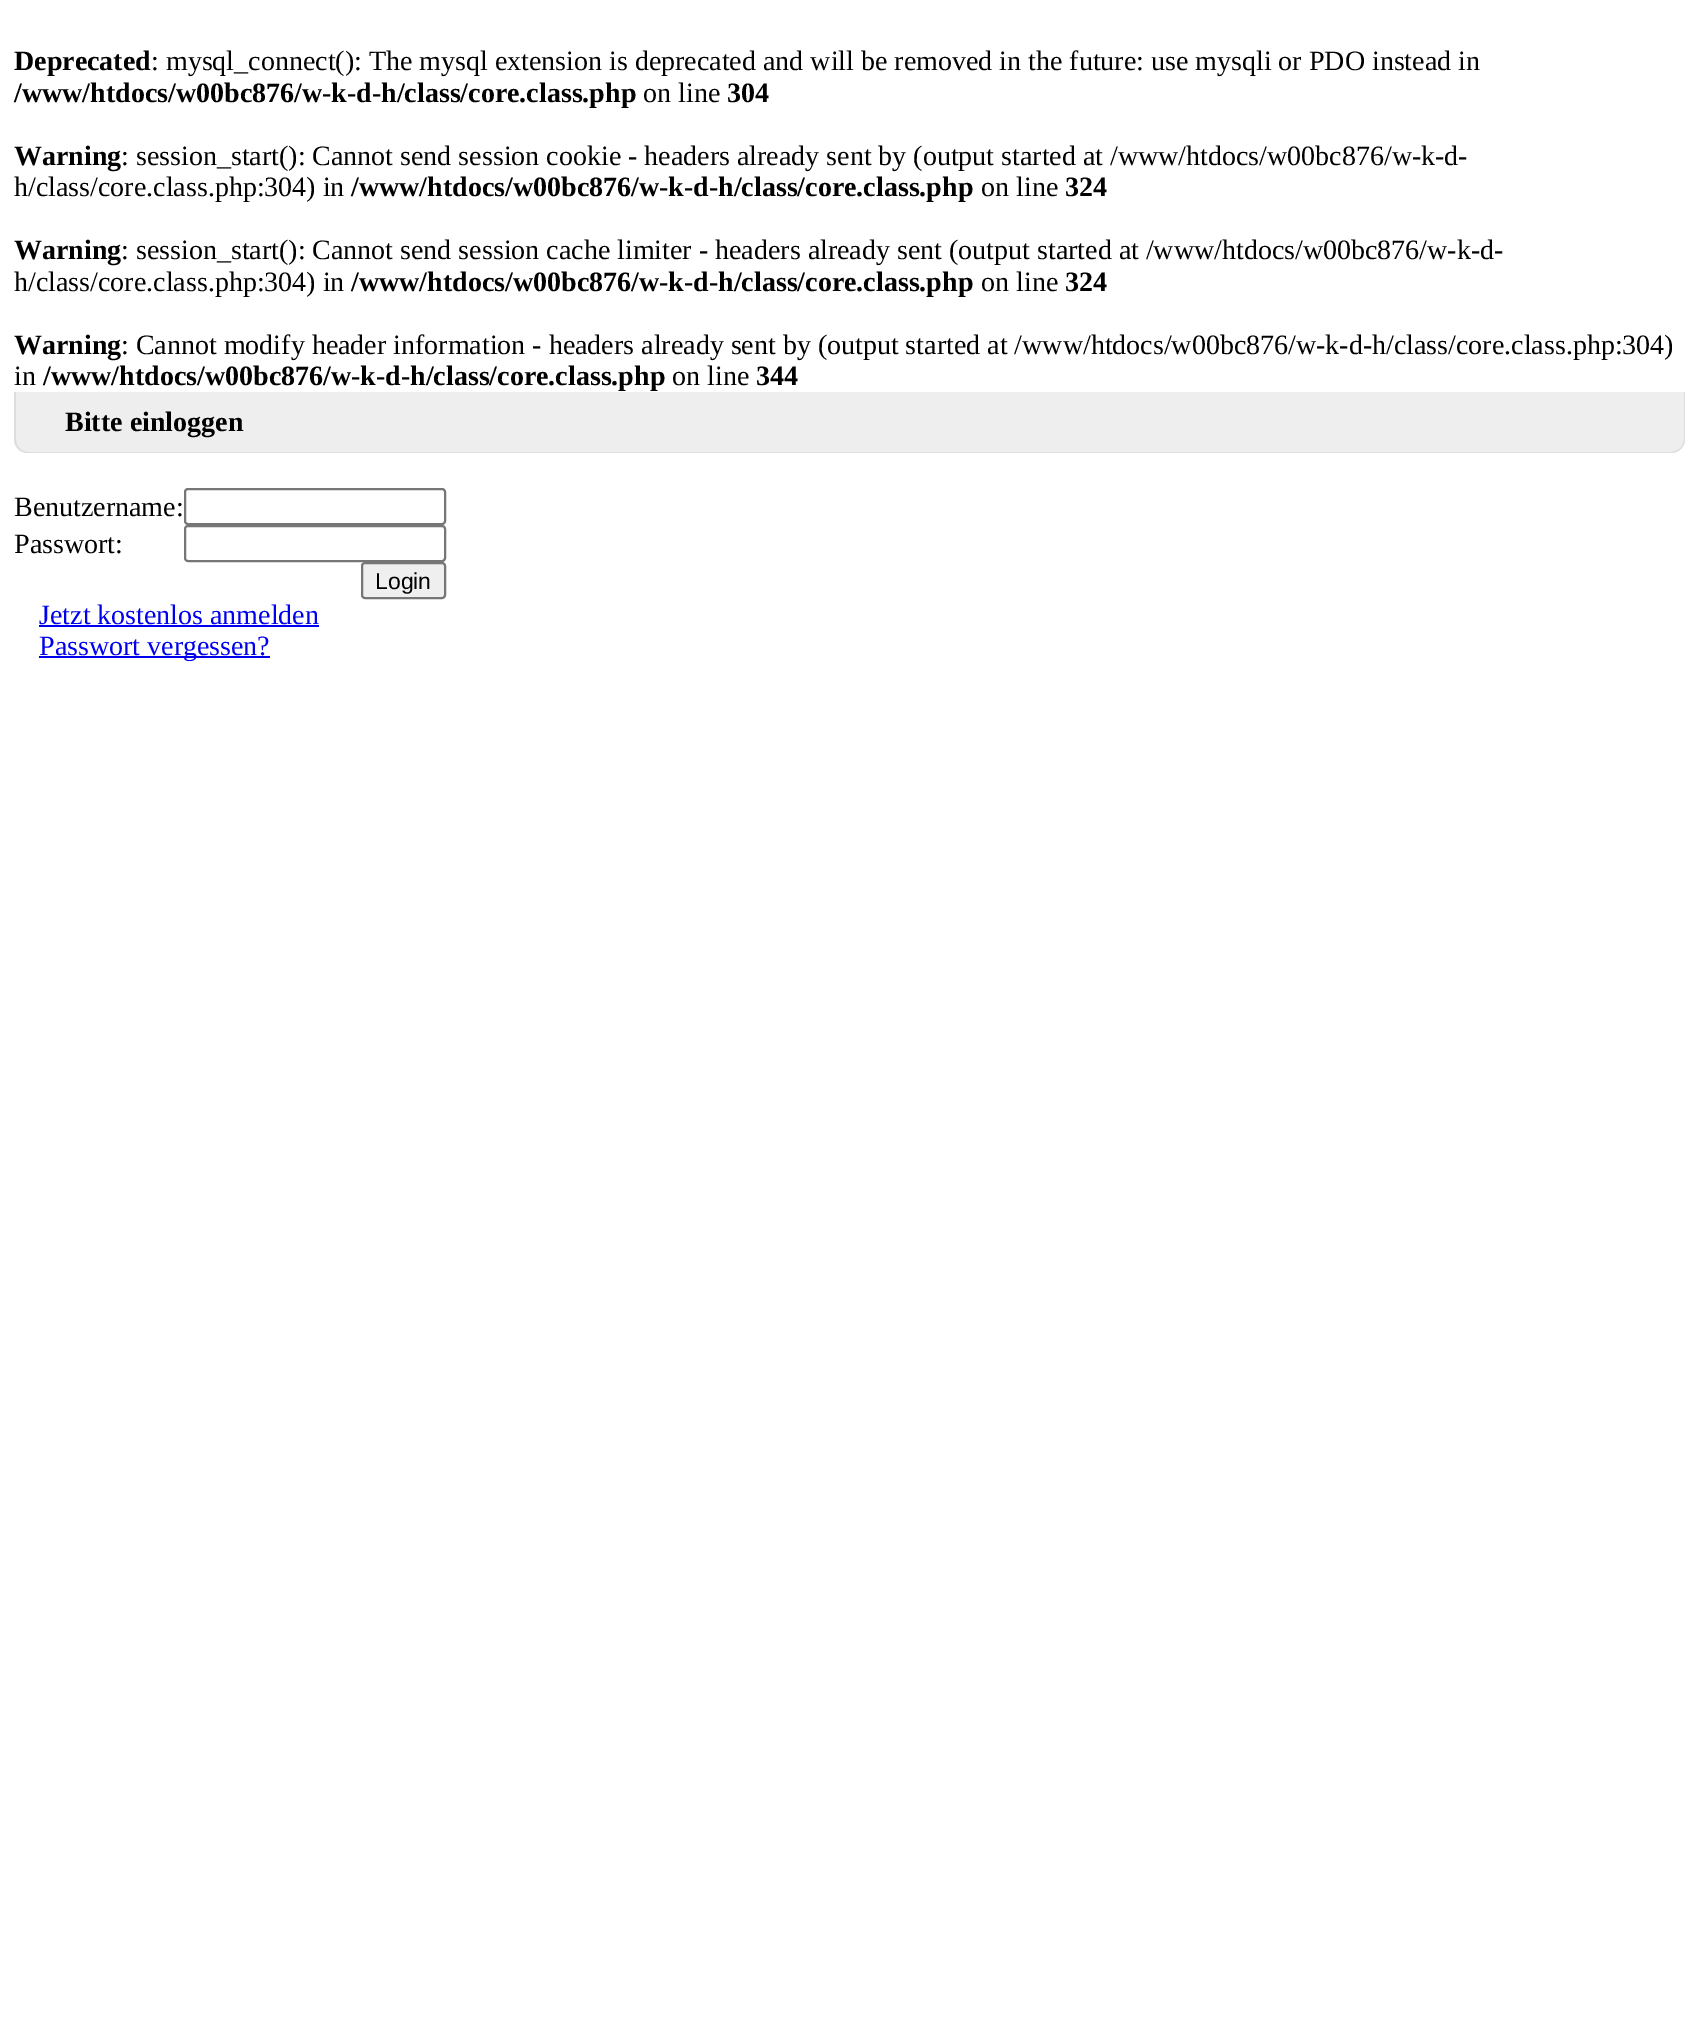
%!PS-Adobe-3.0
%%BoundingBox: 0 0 1698 2027
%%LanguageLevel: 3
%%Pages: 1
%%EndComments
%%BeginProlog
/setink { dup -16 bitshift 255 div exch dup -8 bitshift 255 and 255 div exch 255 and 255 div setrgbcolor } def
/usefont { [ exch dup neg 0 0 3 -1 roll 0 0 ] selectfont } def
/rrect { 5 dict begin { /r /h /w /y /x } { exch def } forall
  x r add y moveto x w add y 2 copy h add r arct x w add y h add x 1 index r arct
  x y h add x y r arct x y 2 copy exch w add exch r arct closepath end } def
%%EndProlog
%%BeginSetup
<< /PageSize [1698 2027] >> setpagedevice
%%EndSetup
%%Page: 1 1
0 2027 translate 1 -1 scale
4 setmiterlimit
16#FFFFFF setink
0 0 1698 2027 rectfill
/LiberationSerif-Bold 28 usefont
16#000000 setink
14 70 moveto (Deprecated) show
/LiberationSerif-Regular 28 usefont
151 70 moveto (: mysql_connect\(\): The mysql extension is deprecated and will be removed in the future: use mysqli or PDO instead in) show
/LiberationSerif-Bold 28 usefont
14 102 moveto (/www/htdocs/w00bc876/w-k-d-h/class/core.class.php) show
/LiberationSerif-Regular 28 usefont
643 102 moveto (on line) show
/LiberationSerif-Bold 28 usefont
727 102 moveto (304) show
14 165 moveto (Warning) show
/LiberationSerif-Regular 28 usefont
121 165 moveto (: session_start\(\): Cannot send session cookie - headers already sent by \(output started at /www/htdocs/w00bc876/w-k-d-) show
14 196 moveto (h/class/core.class.php:304\) in) show
/LiberationSerif-Bold 28 usefont
351 196 moveto (/www/htdocs/w00bc876/w-k-d-h/class/core.class.php) show
/LiberationSerif-Regular 28 usefont
981 196 moveto (on line) show
/LiberationSerif-Bold 28 usefont
1065 196 moveto (324) show
14 259 moveto (Warning) show
/LiberationSerif-Regular 28 usefont
121 259 moveto (: session_start\(\): Cannot send session cache limiter - headers already sent \(output started at /www/htdocs/w00bc876/w-k-d-) show
14 291 moveto (h/class/core.class.php:304\) in) show
/LiberationSerif-Bold 28 usefont
351 291 moveto (/www/htdocs/w00bc876/w-k-d-h/class/core.class.php) show
/LiberationSerif-Regular 28 usefont
981 291 moveto (on line) show
/LiberationSerif-Bold 28 usefont
1065 291 moveto (324) show
14 354 moveto (Warning) show
/LiberationSerif-Regular 28 usefont
121 354 moveto (: Cannot modify header information - headers already sent by \(output started at /www/htdocs/w00bc876/w-k-d-h/class/core.class.php:304\)) show
14 385 moveto (in) show
/LiberationSerif-Bold 28 usefont
43 385 moveto (/www/htdocs/w00bc876/w-k-d-h/class/core.class.php) show
/LiberationSerif-Regular 28 usefont
672 385 moveto (on line) show
/LiberationSerif-Bold 28 usefont
756 385 moveto (344) show
16#EEEEEE setink
14 392 moveto 1685 392 lineto 1685 439 lineto 1685 446.5 1678.5 453 1671 453 curveto 28 453 lineto 20.5 453 14 446.5 14 439 curveto closepath fill
16#DDDDDD setink
14 392 moveto 1685 392 lineto 1685 439 lineto 1685 447 1679 453 1671 453 curveto 28 453 lineto 20 453 14 447 14 439 curveto closepath 16 392 moveto 1684 392 lineto 1684 439 lineto 1684 446 1678 452 1671 452 curveto 28 452 lineto 21 452 16 446 16 439 curveto closepath eofill
16#000000 setink
65 431 moveto (Bitte einloggen) show
/LiberationSerif-Regular 28 usefont
14 516 moveto (Benutzername:) show
16#767676 setink
2 setlinewidth
185 489 260 35 3 rrect stroke
16#000000 setink
14 553 moveto (Passwort:) show
16#767676 setink
185 526 260 35 3 rrect stroke
16#EFEFEF setink
362 563 83 35 3 rrect gsave fill grestore
16#767676 setink
stroke
/LiberationSans-Regular 23 usefont
16#000000 setink
375 589 moveto (Login) show
/LiberationSerif-Regular 28 usefont
16#0000EE setink
39 624 moveto (Jetzt kostenlos anmelden) show
39 625 280 2 rectfill
39 656 231 2 rectfill
39 655 moveto (Passwort vergessen?) show
showpage
%%EOF
